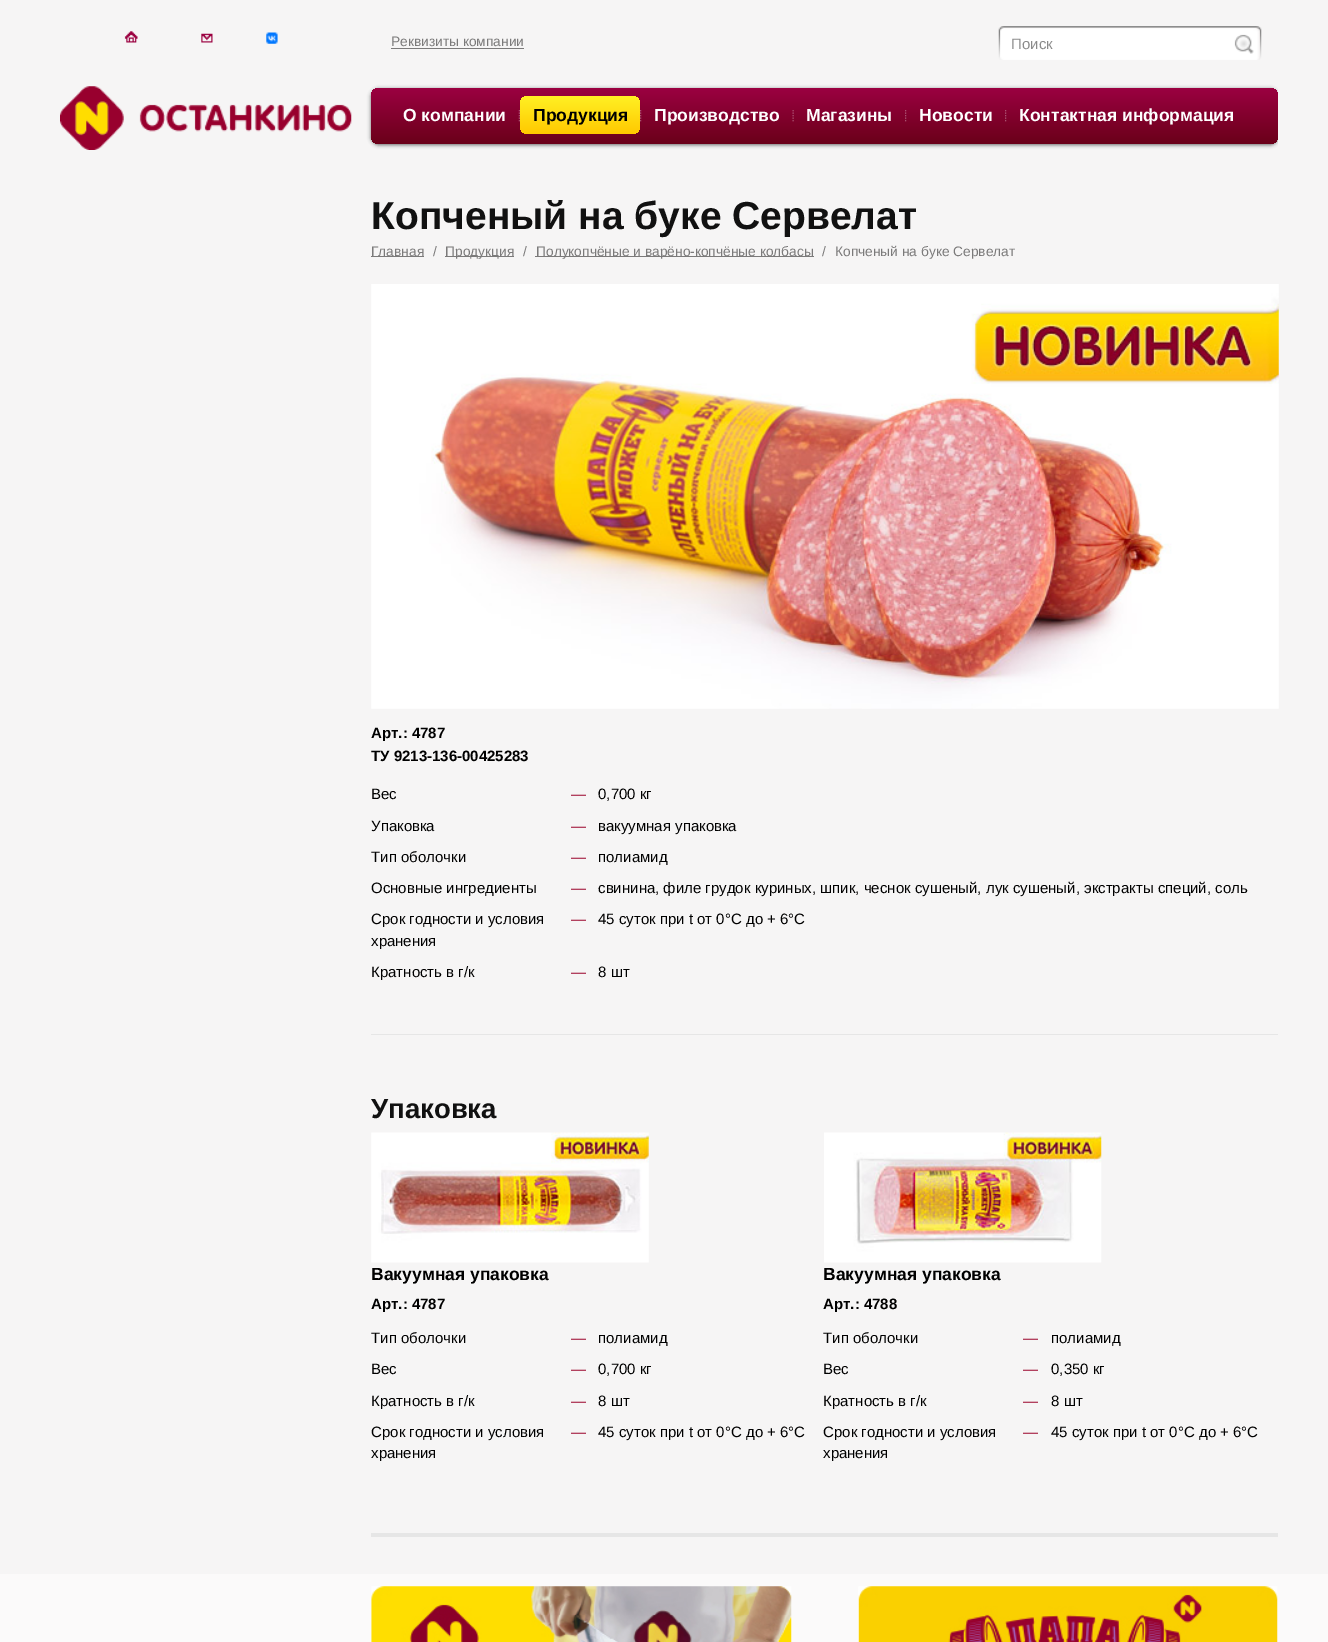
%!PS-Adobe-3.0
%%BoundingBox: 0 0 1328 1642
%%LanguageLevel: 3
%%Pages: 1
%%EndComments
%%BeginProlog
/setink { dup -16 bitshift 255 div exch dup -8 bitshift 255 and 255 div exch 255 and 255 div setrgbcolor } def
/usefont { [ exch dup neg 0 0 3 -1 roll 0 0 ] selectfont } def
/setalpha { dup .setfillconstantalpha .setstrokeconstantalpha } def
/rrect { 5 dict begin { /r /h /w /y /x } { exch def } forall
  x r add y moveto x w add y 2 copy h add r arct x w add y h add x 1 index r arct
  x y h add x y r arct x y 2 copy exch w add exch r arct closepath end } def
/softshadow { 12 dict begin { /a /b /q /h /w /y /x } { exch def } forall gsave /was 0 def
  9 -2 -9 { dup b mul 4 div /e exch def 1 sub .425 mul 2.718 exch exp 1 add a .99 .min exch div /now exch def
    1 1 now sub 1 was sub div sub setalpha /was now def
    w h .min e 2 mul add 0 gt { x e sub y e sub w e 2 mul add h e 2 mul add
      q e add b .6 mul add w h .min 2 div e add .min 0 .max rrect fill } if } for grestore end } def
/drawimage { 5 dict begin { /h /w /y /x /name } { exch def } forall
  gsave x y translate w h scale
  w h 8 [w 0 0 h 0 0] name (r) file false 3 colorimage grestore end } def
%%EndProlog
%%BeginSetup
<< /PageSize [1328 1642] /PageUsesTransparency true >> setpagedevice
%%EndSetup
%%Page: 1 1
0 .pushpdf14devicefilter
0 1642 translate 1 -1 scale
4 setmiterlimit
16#F6F5F5 setink
0 0 1328 1642 rectfill
16#FBFAFA setink
0 1574 1328 68 rectfill
(img1.raw) 124 31 14 12 drawimage
(img2.raw) 201 33 12 10 drawimage
(img3.raw) 266 32 12 12 drawimage
(img4.raw) 60 86 292 64 drawimage
/LiberationSans-Regular 13.75 usefont
16#7B7A7A setink
391 46 moveto (Реквизиты компании) show
391 48 133 1 rectfill
(img5.raw) 998 26 264 34 drawimage
/LiberationSans-Regular 15 usefont
16#8A8A8A setink
1011 49 moveto (Поиск) show
gsave
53 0 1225 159 rectclip
16#666666 setink
371 89 907 56 8 2 1 softshadow
grestore
gsave 371 88 907 56 8 rrect clip newpath
<< /ShadingType 2 /ColorSpace /DeviceRGB /Coords [824 87 824 144] /Extend [true true] /Function << /FunctionType 2 /Domain [0 1] /C0 [0.612 0 0.259] /C1 [0.416 0 0.098] /N 1 >> >> shfill grestore
/LiberationSans-Bold 17.5 usefont
16#FFFFFF setink
403 121 moveto (О компании) show
(img6.raw) 518 110 2 12 drawimage
gsave 520 96 120 38 8 rrect clip newpath
<< /ShadingType 2 /ColorSpace /DeviceRGB /Coords [580 96 580 134] /Extend [true true] /Function << /FunctionType 2 /Domain [0 1] /C0 [1 0.941 0.141] /C1 [1 0.788 0] /N 1 >> >> shfill grestore
16#000000 setink
533 121 moveto (Продукция) show
(img7.raw) 640 110 2 12 drawimage
16#FFFFFF setink
654 121 moveto (Производство) show
(img8.raw) 792 110 2 12 drawimage
806 121 moveto (Магазины) show
(img7.raw) 905 110 2 12 drawimage
919 121 moveto (Новости) show
(img7.raw) 1005 110 2 12 drawimage
1019 121 moveto (Контактная информация) show
/LiberationSans-Bold 39 usefont
16#111111 setink
371 229 moveto (Копченый на буке Сервелат) show
16#7B7A7A setink
371 256 53 1 rectfill
/LiberationSans-Regular 13.75 usefont
371 256 moveto (Главная) show
433 256 moveto (/) show
445 256 69 1 rectfill
445 256 moveto (Продукция) show
523 256 moveto (/) show
535 256 279 1 rectfill
[
    [(Полукопчёные и варёно-копчёные колбасы) 536 256]
    [(/) 822 256]
    [(Копченый на буке Сервелат) 835 256]
] { aload pop moveto show } forall
(img9.raw) 371 284 908 425 drawimage
/LiberationSans-Bold 15 usefont
16#000000 setink
371 738 moveto (Арт.: 4787) show
371 761 moveto (ТУ 9213-136-00425283) show
/LiberationSans-Regular 15 usefont
371 799 moveto (Вес) show
16#990028 setink
571 799 moveto (—) show
16#000000 setink
598 799 moveto (0,700 кг) show
371 831 moveto (Упаковка) show
16#990028 setink
571 831 moveto (—) show
16#000000 setink
598 831 moveto (вакуумная упаковка) show
371 862 moveto (Тип оболочки) show
16#990028 setink
571 862 moveto (—) show
16#000000 setink
598 862 moveto (полиамид) show
371 893 moveto (Основные ингредиенты) show
16#990028 setink
571 893 moveto (—) show
16#000000 setink
[
    [(свинина, филе грудок куриных, шпик, чеснок сушеный, лук сушеный, экстракты специй, соль) 598 893]
    [(Срок годности и условия) 371 924]
    [(хранения) 371 946]
] { aload pop moveto show } forall
16#990028 setink
571 924 moveto (—) show
16#000000 setink
598 924 moveto (45 суток при t от 0°С до + 6°С) show
371 977 moveto (Кратность в г/к) show
16#990028 setink
571 977 moveto (—) show
16#000000 setink
598 977 moveto (8 шт) show
16#E6E6E6 setink
371 1034 907 1 rectfill
/LiberationSans-Bold 27.5 usefont
16#111111 setink
371 1118 moveto (Упаковка) show
(img10.raw) 371 1132 278 131 drawimage
/LiberationSans-Bold 17.5 usefont
16#000000 setink
371 1280 moveto (Вакуумная упаковка) show
/LiberationSans-Bold 15 usefont
371 1309 moveto (Арт.: 4787) show
/LiberationSans-Regular 15 usefont
371 1343 moveto (Тип оболочки) show
16#990028 setink
571 1343 moveto (—) show
16#000000 setink
598 1343 moveto (полиамид) show
371 1374 moveto (Вес) show
16#990028 setink
571 1374 moveto (—) show
16#000000 setink
598 1374 moveto (0,700 кг) show
371 1406 moveto (Кратность в г/к) show
16#990028 setink
571 1406 moveto (—) show
16#000000 setink
[
    [(8 шт) 598 1406]
    [(Срок годности и условия) 371 1437]
    [(хранения) 371 1458]
] { aload pop moveto show } forall
16#990028 setink
571 1437 moveto (—) show
16#000000 setink
598 1437 moveto (45 суток при t от 0°С до + 6°С) show
(img11.raw) 824 1132 278 131 drawimage
/LiberationSans-Bold 17.5 usefont
823 1280 moveto (Вакуумная упаковка) show
/LiberationSans-Bold 15 usefont
823 1309 moveto (Арт.: 4788) show
/LiberationSans-Regular 15 usefont
823 1343 moveto (Тип оболочки) show
16#990028 setink
1023 1343 moveto (—) show
16#000000 setink
1051 1343 moveto (полиамид) show
823 1374 moveto (Вес) show
16#990028 setink
1023 1374 moveto (—) show
16#000000 setink
1051 1374 moveto (0,350 кг) show
823 1406 moveto (Кратность в г/к) show
16#990028 setink
1023 1406 moveto (—) show
16#000000 setink
[
    [(8 шт) 1051 1406]
    [(Срок годности и условия) 823 1437]
    [(хранения) 823 1458]
] { aload pop moveto show } forall
16#990028 setink
1023 1437 moveto (—) show
16#000000 setink
1051 1437 moveto (45 суток при t от 0°С до + 6°С) show
16#E6E6E6 setink
371 1533 907 4 rectfill
(img12.raw) 371 1586 421 56 drawimage
(img13.raw) 858 1586 420 56 drawimage
.poppdf14devicefilter showpage
%%EOF
